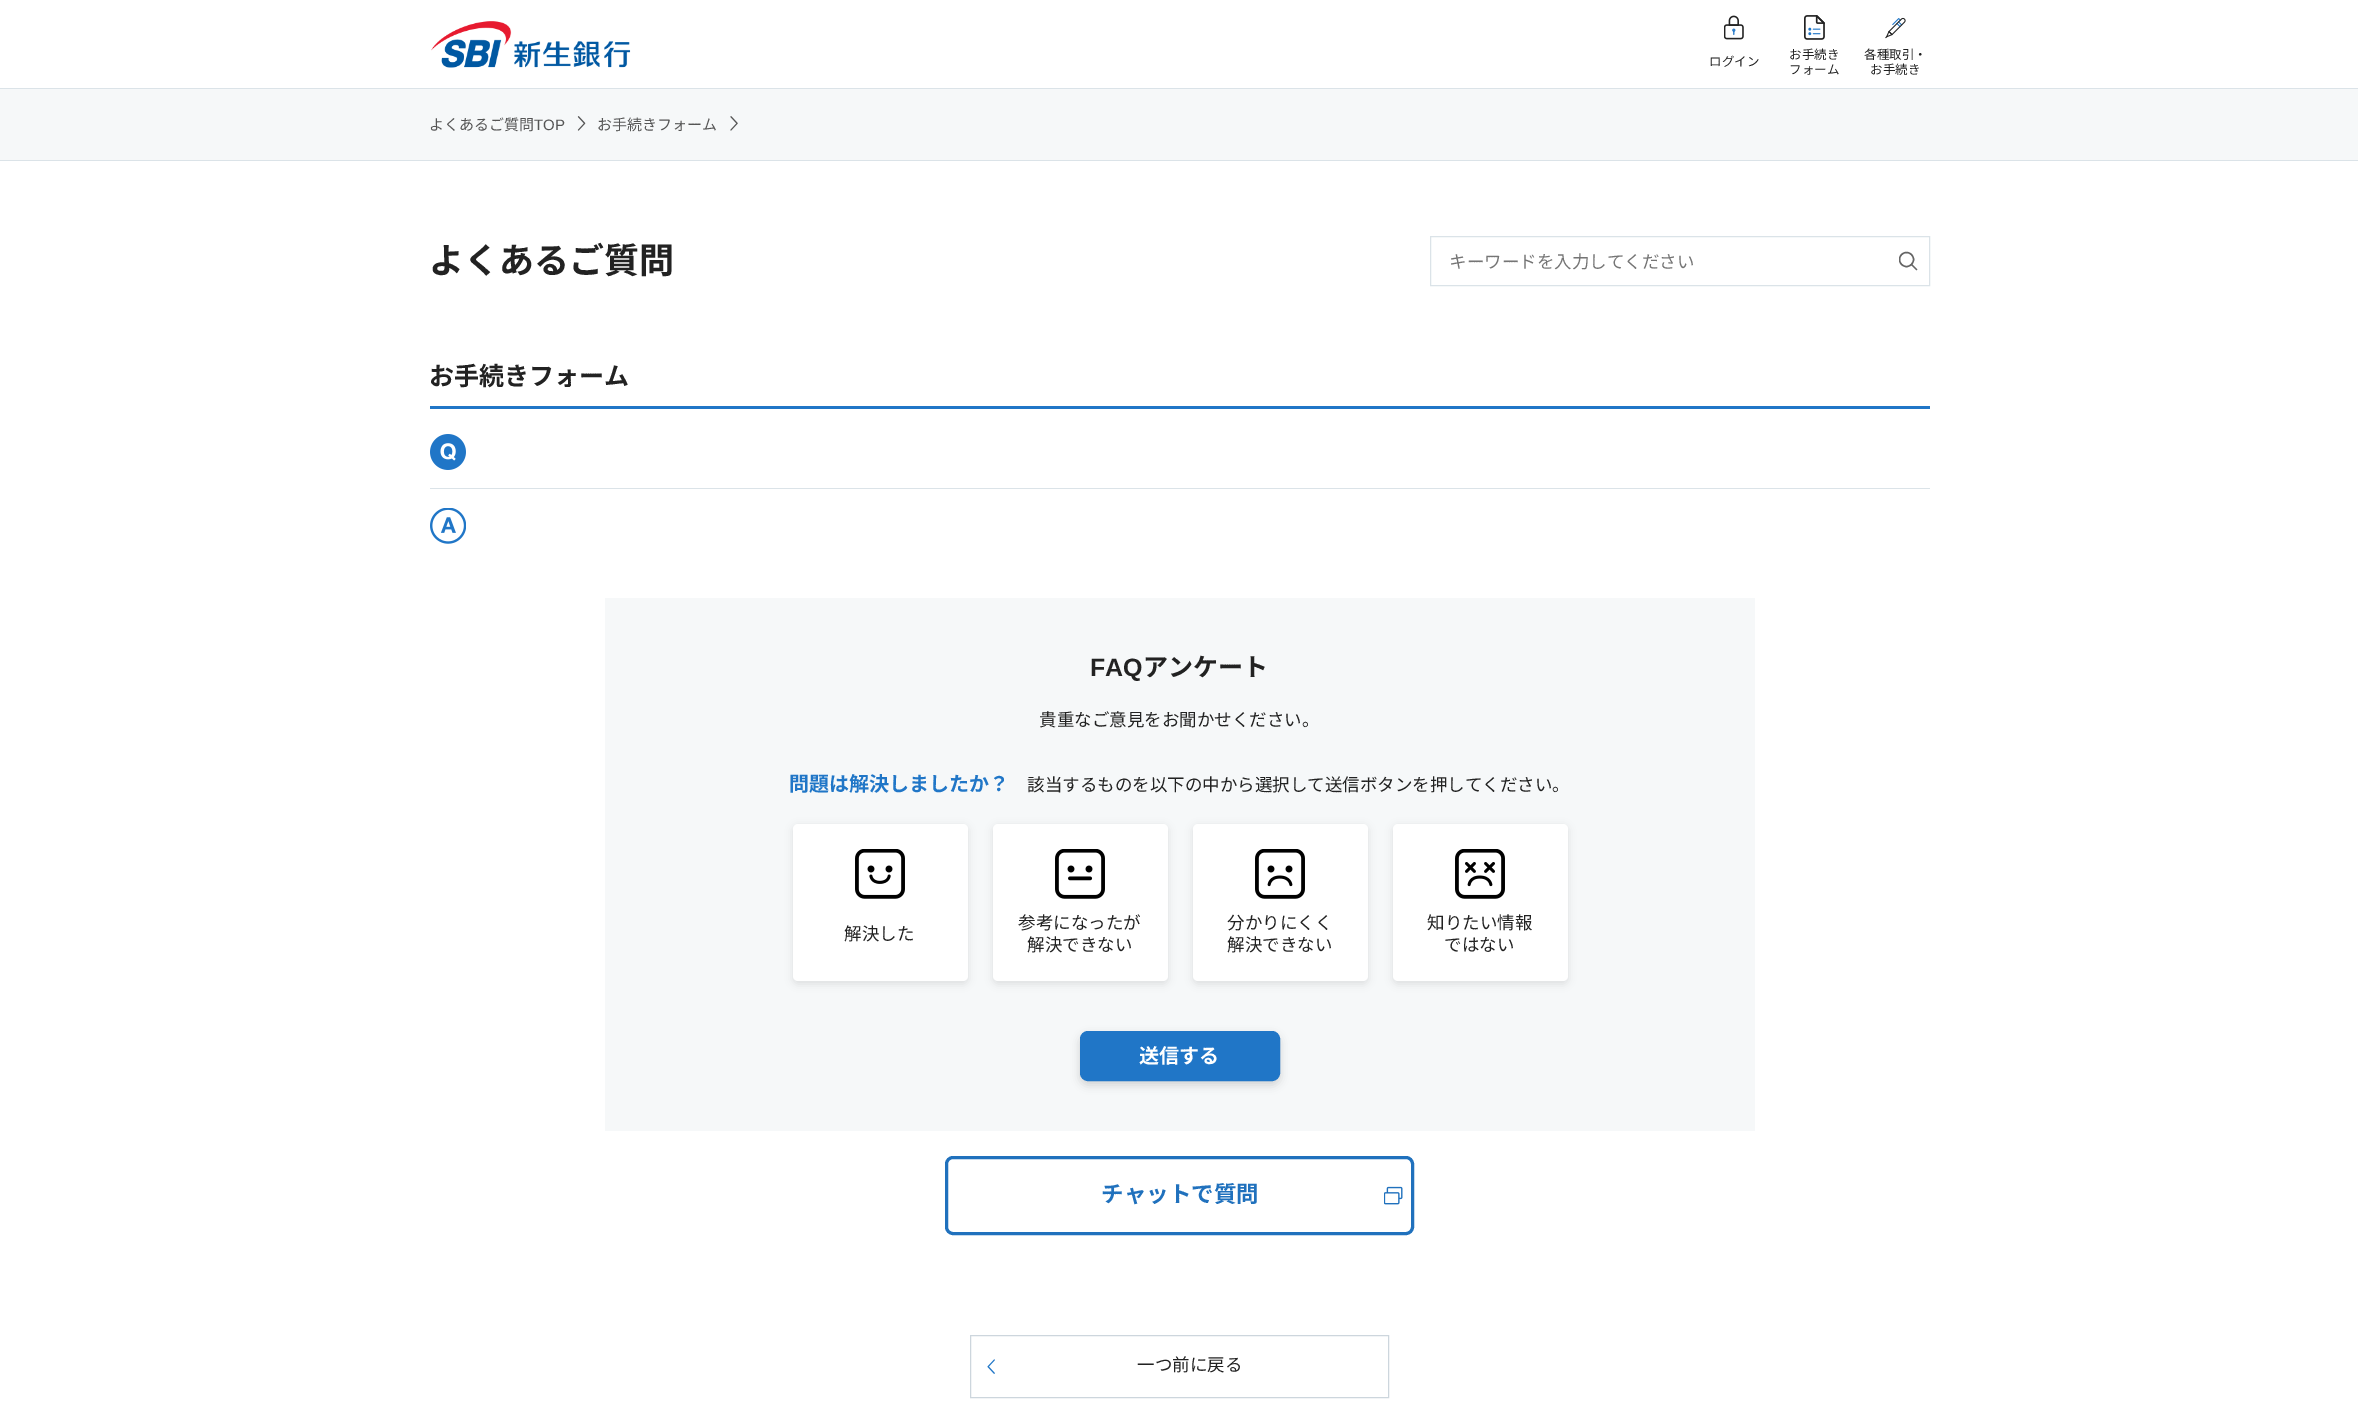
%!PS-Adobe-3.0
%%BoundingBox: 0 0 2358 1414
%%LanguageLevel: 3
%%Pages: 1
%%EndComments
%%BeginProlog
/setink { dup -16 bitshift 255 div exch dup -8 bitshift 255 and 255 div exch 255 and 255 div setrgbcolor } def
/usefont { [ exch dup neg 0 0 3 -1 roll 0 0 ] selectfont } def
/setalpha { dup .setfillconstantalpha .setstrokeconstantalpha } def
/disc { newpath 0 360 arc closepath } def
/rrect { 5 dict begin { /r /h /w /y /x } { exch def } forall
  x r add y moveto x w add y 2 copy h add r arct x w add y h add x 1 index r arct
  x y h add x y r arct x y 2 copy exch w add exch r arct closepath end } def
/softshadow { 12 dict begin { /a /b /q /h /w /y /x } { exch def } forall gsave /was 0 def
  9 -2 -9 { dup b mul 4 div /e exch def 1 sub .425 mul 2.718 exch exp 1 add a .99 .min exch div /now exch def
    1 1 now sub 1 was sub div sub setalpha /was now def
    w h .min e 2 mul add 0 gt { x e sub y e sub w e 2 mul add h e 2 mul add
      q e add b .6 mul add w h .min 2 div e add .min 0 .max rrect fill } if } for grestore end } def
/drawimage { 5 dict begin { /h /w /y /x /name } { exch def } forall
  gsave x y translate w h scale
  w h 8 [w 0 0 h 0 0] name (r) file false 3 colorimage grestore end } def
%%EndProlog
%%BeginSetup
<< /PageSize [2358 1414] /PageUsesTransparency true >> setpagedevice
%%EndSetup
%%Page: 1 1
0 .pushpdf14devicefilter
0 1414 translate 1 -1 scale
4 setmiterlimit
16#FFFFFF setink
0 0 2358 1414 rectfill
16#DBE3E8 setink
0 88 2358 1 rectfill
(img1.raw) 431 21 200 47 drawimage
(img2.raw) 1724 15 20 25 drawimage
/NotoSansJP-Regular 12.5 usefont
16#222222 setink
1709 66 moveto (ログイン) show
(img3.raw) 1804 15 21 25 drawimage
1789 59 moveto (お手続き) show
1789 74 moveto (フォーム) show
(img4.raw) 1885 17 21 22 drawimage
1864 59 moveto (各種取引・) show
1870 74 moveto (お手続き) show
16#F6F8F9 setink
0 89 2358 71 rectfill
16#DBE3E8 setink
0 160 2358 1 rectfill
/NotoSansJP-Regular 15 usefont
16#555555 setink
429 130 moveto (よくあるご質問) show
/LiberationSans-Regular 15 usefont
534 130 moveto (TOP) show
(img5.raw) 577 116 9 15 drawimage
/NotoSansJP-Regular 15 usefont
597 130 moveto (お手続きフォーム) show
(img6.raw) 730 116 8 15 drawimage
/NotoSansJP-Bold 35 usefont
16#222222 setink
429 273 moveto (よくあるご質問) show
16#DBE3E8 setink
1430.5 236.5 499 49 rectstroke
/NotoSansJP-Regular 17.5 usefont
16#757575 setink
1449 268 moveto (キーワードを入力してください) show
gsave
1899 251 19 19 rectclip
16#666666 setink
1.4 setlinewidth
1906.5 259.5 7 disc stroke
grestore
16#666666 setink
1.4 setlinewidth
1 setlinecap
1 setlinejoin
1911.5 264.5 moveto 1916.5 269.5 lineto stroke
16#2076C7 setink
430 406 1500 3 rectfill
/NotoSansJP-Bold 25 usefont
16#222222 setink
429 385 moveto (お手続きフォーム) show
(img7.raw) 430 434 36 36 drawimage
16#DBE3E8 setink
430 488 1500 1 rectfill
(img8.raw) 430 508 36 36 drawimage
16#F6F8F9 setink
605 598 1150 533 rectfill
/LiberationSans-Bold 25 usefont
16#222222 setink
1090 676 moveto (FAQ) show
/NotoSansJP-Bold 25 usefont
1143 676 moveto (アンケート) show
/NotoSansJP-Regular 17.5 usefont
1039 726 moveto (貴重なご意見をお聞かせください。) show
/NotoSansJP-Bold 20 usefont
16#2076C7 setink
789 791 moveto (問題は解決しましたか？) show
/NotoSansJP-Regular 17.5 usefont
16#222222 setink
1027 791 moveto (該当するものを以下の中から選択して送信ボタンを押してください。) show
16#000000 setink
793 826 175 158 5 4 0.1 softshadow
16#FFFFFF setink
793 824 175 157 5 rrect fill
(img9.raw) 855 849 50 50 drawimage
16#222222 setink
844 940 moveto (解決した) show
16#000000 setink
993 826 175 158 5 4 0.1 softshadow
16#FFFFFF setink
993 824 175 157 5 rrect fill
(img10.raw) 1055 849 50 50 drawimage
16#222222 setink
1018 929 moveto (参考になったが) show
1027 951 moveto (解決できない) show
16#000000 setink
1193 826 175 158 5 4 0.1 softshadow
16#FFFFFF setink
1193 824 175 157 5 rrect fill
(img11.raw) 1255 849 50 50 drawimage
16#222222 setink
1227 929 moveto (分かりにくく) show
1227 951 moveto (解決できない) show
16#000000 setink
1393 826 175 158 5 4 0.1 softshadow
16#FFFFFF setink
1393 824 175 157 5 rrect fill
(img12.raw) 1455 849 50 50 drawimage
16#222222 setink
1427 929 moveto (知りたい情報) show
1444 951 moveto (ではない) show
16#000000 setink
1080 1035 200 50 8 4.5 0.15 softshadow
16#2076C7 setink
1081.5 1032.5 197 47 6.5 rrect gsave fill grestore
3 setlinewidth
0 setlinecap
0 setlinejoin
stroke
/NotoSansJP-Bold 20 usefont
16#FFFFFF setink
1139 1063 moveto (送信する) show
16#2071BD setink
946.5 1157.5 466 76 6.5 rrect stroke
/NotoSansJP-Bold 22.5 usefont
1101 1202 moveto (チャットで質問) show
(img13.raw) 1384 1186 19 19 drawimage
16#CDD6DD setink
1 setlinewidth
970.5 1335.5 418 62 rectstroke
(img14.raw) 987 1359 8 15 drawimage
/NotoSansJP-Regular 17.5 usefont
16#222222 setink
1137 1371 moveto (一つ前に戻る) show
.poppdf14devicefilter showpage
%%EOF
